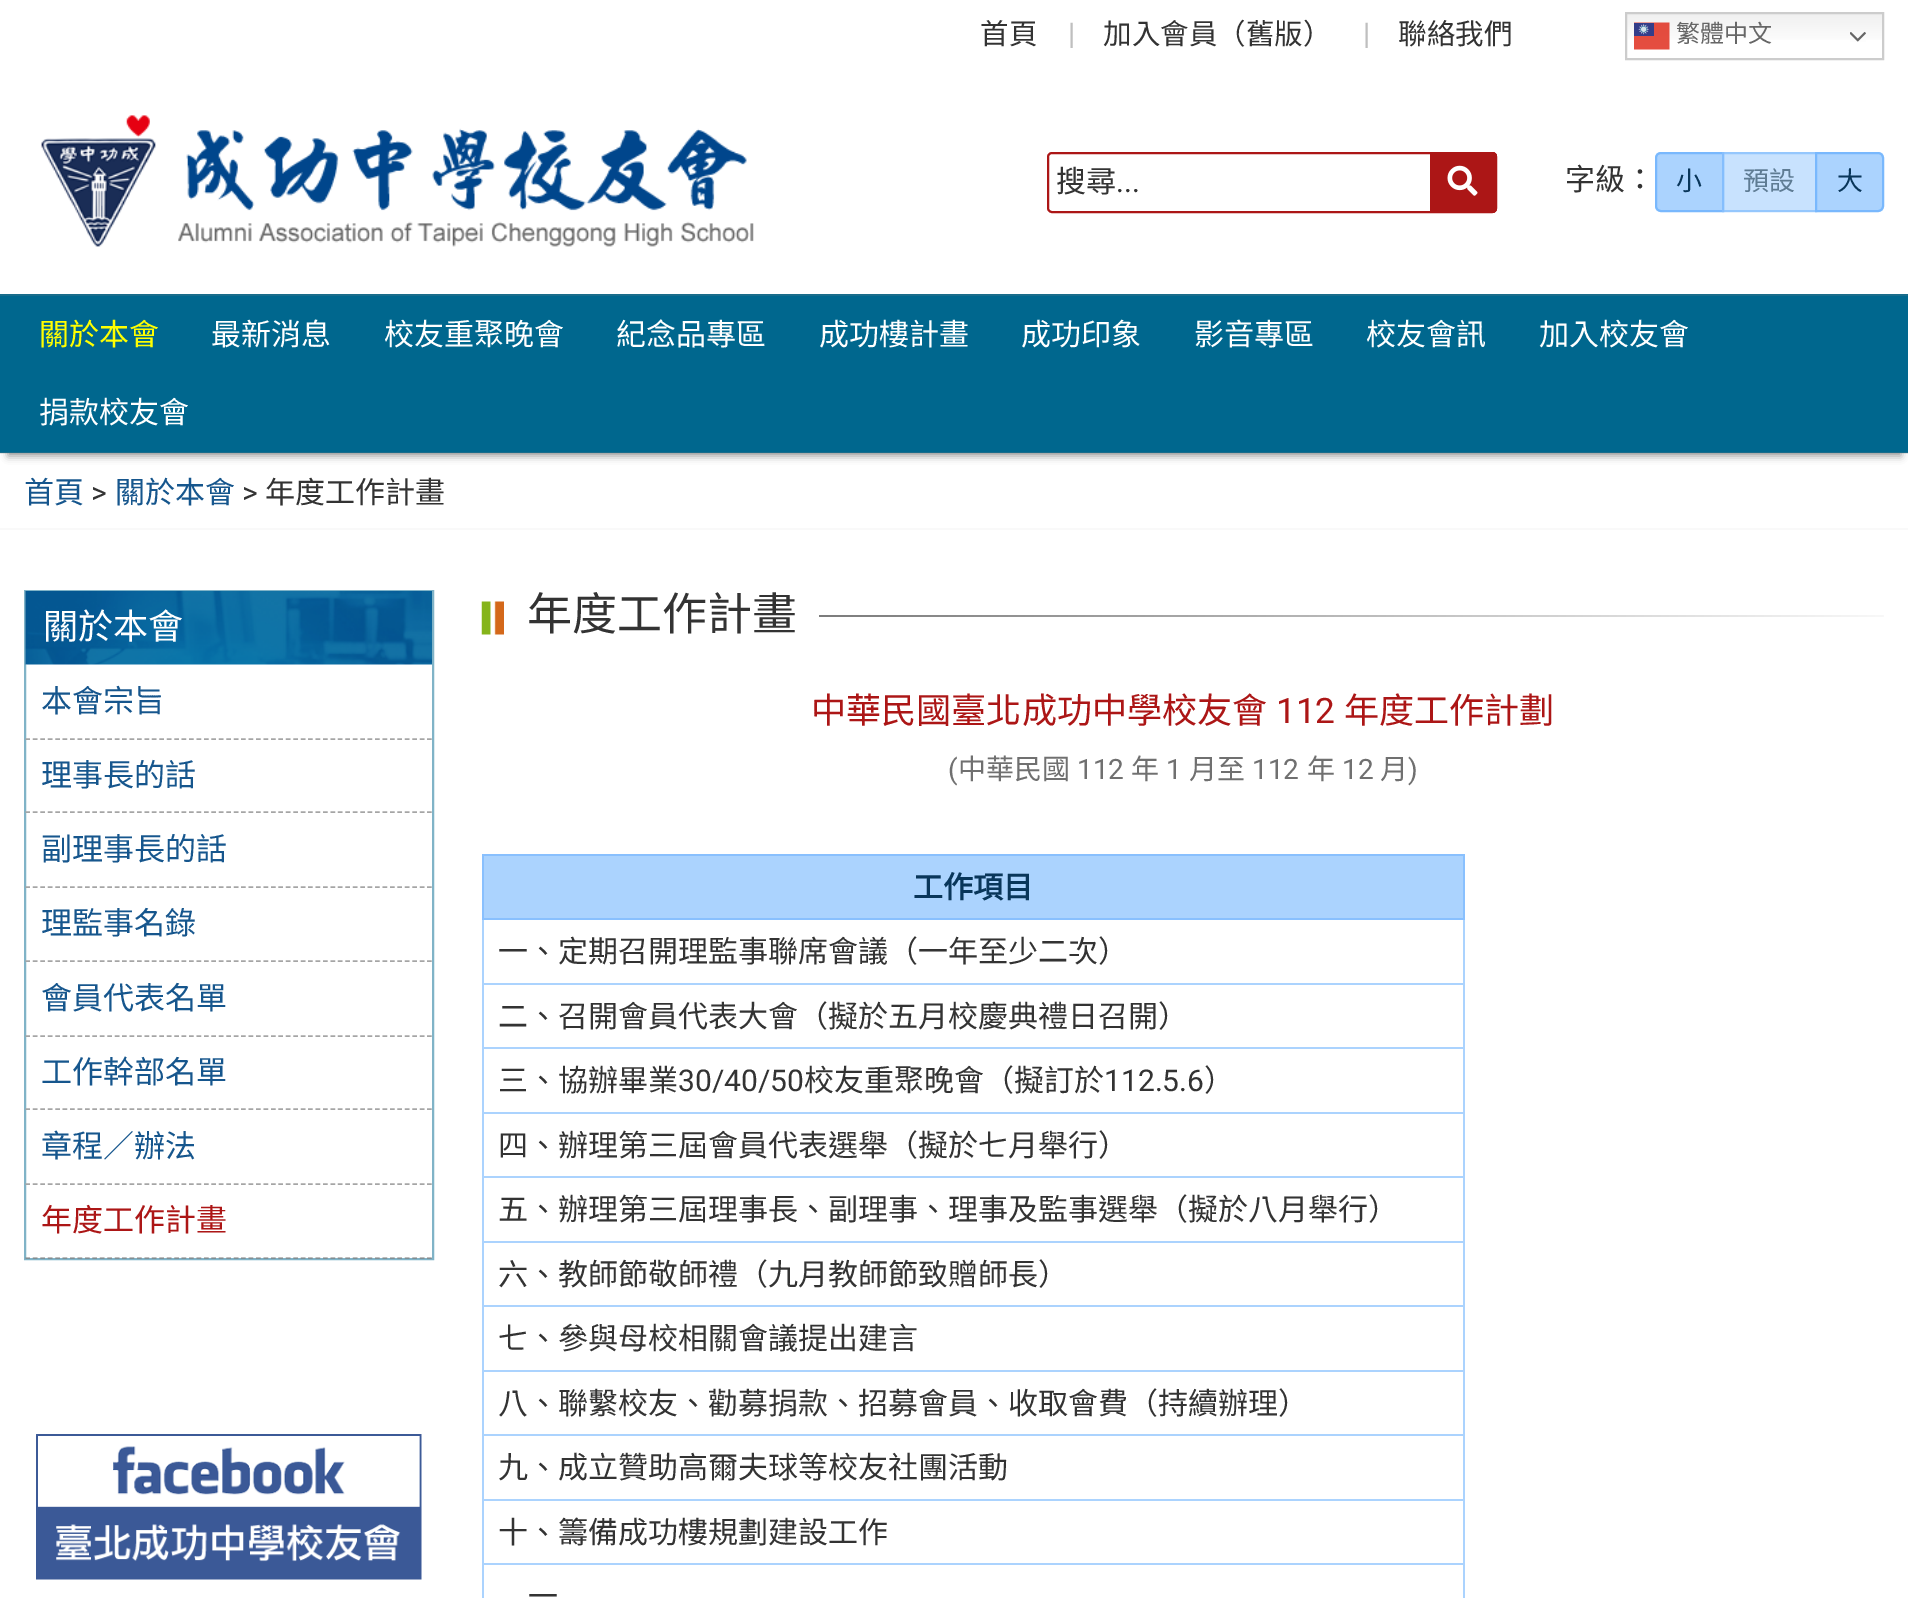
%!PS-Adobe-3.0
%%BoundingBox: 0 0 1908 1598
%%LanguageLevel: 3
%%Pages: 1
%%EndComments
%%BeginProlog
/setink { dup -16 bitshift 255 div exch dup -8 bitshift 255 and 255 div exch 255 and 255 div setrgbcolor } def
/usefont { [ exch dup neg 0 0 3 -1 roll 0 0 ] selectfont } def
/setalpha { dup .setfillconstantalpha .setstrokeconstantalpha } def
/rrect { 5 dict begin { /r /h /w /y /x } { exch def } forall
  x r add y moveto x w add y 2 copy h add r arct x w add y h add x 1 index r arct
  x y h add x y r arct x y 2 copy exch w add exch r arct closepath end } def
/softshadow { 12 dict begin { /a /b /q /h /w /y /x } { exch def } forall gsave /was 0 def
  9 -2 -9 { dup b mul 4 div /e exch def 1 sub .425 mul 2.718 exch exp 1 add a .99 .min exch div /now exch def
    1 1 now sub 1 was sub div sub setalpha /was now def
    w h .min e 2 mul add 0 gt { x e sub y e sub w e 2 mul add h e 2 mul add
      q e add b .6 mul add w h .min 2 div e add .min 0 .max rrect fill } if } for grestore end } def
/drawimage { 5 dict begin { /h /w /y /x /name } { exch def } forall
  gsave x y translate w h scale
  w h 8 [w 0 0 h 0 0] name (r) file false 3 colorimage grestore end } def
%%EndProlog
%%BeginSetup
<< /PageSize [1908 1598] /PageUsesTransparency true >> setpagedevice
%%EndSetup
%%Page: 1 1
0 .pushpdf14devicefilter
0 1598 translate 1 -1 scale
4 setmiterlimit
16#FFFFFF setink
0 0 1908 1598 rectfill
/NotoSansCJKTC-Regular 28.5 usefont
16#333333 setink
980 44 moveto (首頁) show
/Roboto-Regular 30 usefont
16#BFBFBF setink
1068 44 moveto (|) show
/NotoSansCJKTC-Regular 28.5 usefont
16#333333 setink
1103 44 moveto (加入會員（舊版）) show
/Roboto-Regular 30 usefont
16#BFBFBF setink
1363 44 moveto (|) show
/NotoSansCJKTC-Regular 28.5 usefont
16#333333 setink
1398 44 moveto (聯絡我們) show
gsave 1627 14 moveto 1882 14 lineto 1882 40 lineto 1627 40 lineto closepath clip newpath
<< /ShadingType 2 /ColorSpace /DeviceRGB /Coords [1754 12 1754 60] /Extend [true true] /Function << /FunctionType 3 /Domain [0 1] /Functions [<< /FunctionType 2 /Domain [0 1] /C0 [0.937 0.937 0.937] /C1 [1 1 1] /N 1 >> << /FunctionType 2 /Domain [0 1] /C0 [1 1 1] /C1 [1 1 1] /N 1 >>] /Bounds [0.7] /Encode [0 1 0 1] >> >> shfill grestore
16#CCCCCC setink
2 setlinewidth
1626 13 257 46 rectstroke
(img1.raw) 1634 22 36 28 drawimage
/NotoSansCJKTC-Regular 24 usefont
16#666666 setink
1676 42 moveto (繁體中文) show
(img2.raw) 1850 32 16 10 drawimage
(img3.raw) 41 115 713 132 drawimage
16#AC1616 setink
1048 153 448 59 4 rrect stroke
/NotoSansCJKTC-Regular 30 usefont
16#333333 setink
1056 192 moveto (搜尋) show
/Roboto-Regular 30 usefont
1116 192 moveto (...) show
16#AC1616 setink
1430 152 moveto 1492 152 lineto 1495 152 1497 154 1497 157 curveto 1497 208 lineto 1497 211 1495 213 1492 213 curveto 1430 213 lineto closepath fill
1430 152 moveto 1492 152 lineto 1495 152 1497 154 1497 156 curveto 1497 208 lineto 1497 211 1495 213 1492 213 curveto 1430 213 lineto closepath 1430 153 moveto 1492 153 lineto 1494 153 1496 154 1496 156 curveto 1496 208 lineto 1496 210 1494 212 1492 212 curveto 1430 212 lineto closepath eofill
(img4.raw) 1447 165 31 31 drawimage
/NotoSansCJKTC-Regular 30 usefont
16#333333 setink
1565 190 moveto (字級：) show
16#ABD3FE setink
1661 153 moveto 1723 153 lineto 1723 211 lineto 1661 211 lineto 1658 211 1656 209 1656 206 curveto 1656 158 lineto 1656 155 1658 153 1661 153 curveto closepath gsave fill grestore
16#79B8FD setink
stroke
/NotoSansCJKTC-Regular 26 usefont
16#09365A setink
1676 190 moveto (小) show
0.65 setalpha
16#ABD3FE setink
1722 152 93 60 rectfill
16#79B8FD setink
1723 153 93 58 rectstroke
1 setalpha
16#5F7C94 setink
1743 190 moveto (預設) show
16#ABD3FE setink
1816 153 moveto 1878 153 lineto 1881 153 1883 155 1883 158 curveto 1883 206 lineto 1883 209 1881 211 1878 211 curveto 1816 211 lineto closepath gsave fill grestore
16#79B8FD setink
stroke
16#09365A setink
1837 190 moveto (大) show
16#000000 setink
8 312 1893 144 0 4 0.4 softshadow
[
    [0 296 1908 157 16#00678E]
    [0 294 1908 2 16#196C8B]
] { aload pop setink rectfill } forall
0.2 setalpha
[
    [0 452 1908 2 16#7F7F7F]
] { aload pop setink rectfill } forall
/NotoSansCJKTC-Regular 30 usefont
1 setalpha
16#FFFF00 setink
39 345 moveto (關於本會) show
16#FFFFFF setink
[
    [(最新消息) 211 345]
    [(校友重聚晚會) 384 345]
    [(紀念品專區) 616 345]
    [(成功樓計畫) 819 345]
    [(成功印象) 1021 345]
    [(影音專區) 1194 345]
    [(校友會訊) 1366 345]
    [(加入校友會) 1539 345]
    [(捐款校友會) 39 423]
] { aload pop moveto show } forall
16#F9F9F9 setink
0 528 1908 2 rectfill
16#16568D setink
24 503 moveto (首頁) show
/Roboto-Regular 30 usefont
16#333333 setink
91 503 moveto (>) show
/NotoSansCJKTC-Regular 30 usefont
16#16568D setink
115 503 moveto (關於本會) show
/Roboto-Regular 30 usefont
16#333333 setink
242 503 moveto (>) show
/NotoSansCJKTC-Regular 30 usefont
265 503 moveto (年度工作計畫) show
16#80B3C7 setink
25 591 408 668 rectstroke
(img5.raw) 25 591 407 74 drawimage
/NotoSansCJKTC-Regular 35.1 usefont
16#FFFFFF setink
43 639 moveto (關於本會) show
16#A5A5A5 setink
1.5 setlinewidth
[4.5 2.94] 0 setdash
25.5 739 moveto 432 739 lineto stroke
/NotoSansCJKTC-Regular 31 usefont
16#16568D setink
41 712 moveto (本會宗旨) show
16#A5A5A5 setink
25.5 812 moveto 432 812 lineto stroke
16#16568D setink
41 786 moveto (理事長的話) show
16#A5A5A5 setink
25.5 887 moveto 432 887 lineto stroke
16#16568D setink
41 860 moveto (副理事長的話) show
16#A5A5A5 setink
25.5 961 moveto 432 961 lineto stroke
16#16568D setink
41 934 moveto (理監事名錄) show
16#A5A5A5 setink
25.5 1036 moveto 432 1036 lineto stroke
16#16568D setink
41 1009 moveto (會員代表名單) show
16#A5A5A5 setink
25.5 1109 moveto 432 1109 lineto stroke
16#16568D setink
41 1083 moveto (工作幹部名單) show
16#A5A5A5 setink
25.5 1184 moveto 432 1184 lineto stroke
16#16568D setink
41 1157 moveto (章程／辦法) show
0.7 setalpha
16#7F7F7F setink
25.5 1258 moveto 432 1258 lineto stroke
1 setalpha
16#AC1616 setink
41 1231 moveto (年度工作計畫) show
(img6.raw) 36 1434 386 146 drawimage
(img7.raw) 481 601 23 34 drawimage
/NotoSansCJKTC-Regular 45 usefont
16#333333 setink
527 630 moveto (年度工作計畫) show
gsave 819 615 moveto 1884 615 lineto 1884 617 lineto 819 617 lineto closepath clip newpath
<< /ShadingType 2 /ColorSpace /DeviceRGB /Coords [819 616 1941 616] /Extend [true true] /Function << /FunctionType 2 /Domain [0 1] /C0 [0.486 0.486 0.486] /C1 [1 1 1] /N 1 >> >> shfill grestore
/NotoSansCJKTC-Regular 35.1 usefont
16#AC1616 setink
811 723 moveto (中華民國臺北成功中學校友會) show
/Roboto-Regular 35.1 usefont
1276 723 moveto (112) show
/NotoSansCJKTC-Regular 35.1 usefont
1344 723 moveto (年度工作計劃) show
/Roboto-Regular 28 usefont
16#707070 setink
948 779 moveto (\() show
/NotoSansCJKTC-Regular 28 usefont
958 779 moveto (中華民國) show
/Roboto-Regular 28 usefont
1077 779 moveto (112) show
/NotoSansCJKTC-Regular 28 usefont
1131 779 moveto (年) show
/Roboto-Regular 28 usefont
1166 779 moveto (1) show
/NotoSansCJKTC-Regular 28 usefont
1189 779 moveto (月至) show
/Roboto-Regular 28 usefont
1252 779 moveto (112) show
/NotoSansCJKTC-Regular 28 usefont
1307 779 moveto (年) show
/Roboto-Regular 28 usefont
1342 779 moveto (12) show
/NotoSansCJKTC-Regular 28 usefont
1380 779 moveto (月) show
/Roboto-Regular 28 usefont
1408 779 moveto (\)) show
[
    [484 856 979 62 16#ABD3FE]
    [482 854 982 2 16#89C0FE]
    [482 983 982 2 16#ABD3FE]
    [482 1047 982 2 16#ABD3FE]
    [482 1112 982 2 16#ABD3FE]
    [482 1176 982 2 16#ABD3FE]
    [482 1241 982 2 16#ABD3FE]
    [482 1305 982 2 16#ABD3FE]
    [482 1370 982 2 16#ABD3FE]
    [482 1434 982 2 16#ABD3FE]
    [482 1499 982 2 16#ABD3FE]
    [482 1563 982 2 16#ABD3FE]
    [1463 1563 2 35 16#ABD3FE]
    [1463 1499 2 66 16#ABD3FE]
    [1463 1434 2 66 16#ABD3FE]
    [1463 1370 2 66 16#ABD3FE]
    [1463 1305 2 66 16#ABD3FE]
    [1463 1241 2 66 16#ABD3FE]
    [1463 1176 2 66 16#ABD3FE]
    [1463 1112 2 66 16#ABD3FE]
    [1463 1047 2 66 16#ABD3FE]
    [1463 918 2 131 16#ABD3FE]
    [1463 854 2 66 16#89C0FE]
    [482 1563 2 35 16#ABD3FE]
    [482 1499 2 66 16#ABD3FE]
    [482 1434 2 66 16#ABD3FE]
    [482 1370 2 66 16#ABD3FE]
    [482 1305 2 66 16#ABD3FE]
    [482 1241 2 66 16#ABD3FE]
    [482 1176 2 66 16#ABD3FE]
    [482 1112 2 66 16#ABD3FE]
    [482 1047 2 66 16#ABD3FE]
    [482 918 2 131 16#ABD3FE]
    [482 918 982 2 16#89C0FE]
    [482 854 2 66 16#89C0FE]
] { aload pop setink rectfill } forall
/NotoSansCJKTC-Bold 30 usefont
16#09365A setink
913 898 moveto (工作項目) show
/NotoSansCJKTC-Regular 30 usefont
16#333333 setink
[
    [(一、定期召開理監事聯席會議（一年至少二次）) 498 962]
    [(二、召開會員代表大會（擬於五月校慶典禮日召開）) 498 1027]
    [(三、協辦畢業) 498 1091]
] { aload pop moveto show } forall
/Roboto-Regular 30 usefont
678 1091 moveto (30/40/50) show
/NotoSansCJKTC-Regular 30 usefont
804 1091 moveto (校友重聚晚會（擬訂於) show
/Roboto-Regular 30 usefont
1104 1091 moveto (112.5.6) show
/NotoSansCJKTC-Regular 30 usefont
[
    [(）) 1204 1091]
    [(四、辦理第三屆會員代表選舉（擬於七月舉行）) 498 1156]
    [(五、辦理第三屆理事長、副理事、理事及監事選舉（擬於八月舉行）) 498 1220]
    [(六、教師節敬師禮（九月教師節致贈師長）) 498 1285]
    [(七、參與母校相關會議提出建言) 498 1349]
    [(八、聯繫校友、勸募捐款、招募會員、收取會費（持續辦理）) 498 1414]
    [(九、成立贊助高爾夫球等校友社團活動) 498 1478]
    [(十、籌備成功樓規劃建設工作) 498 1543]
    [(一) 528 1607]
] { aload pop moveto show } forall
.poppdf14devicefilter showpage
%%EOF
